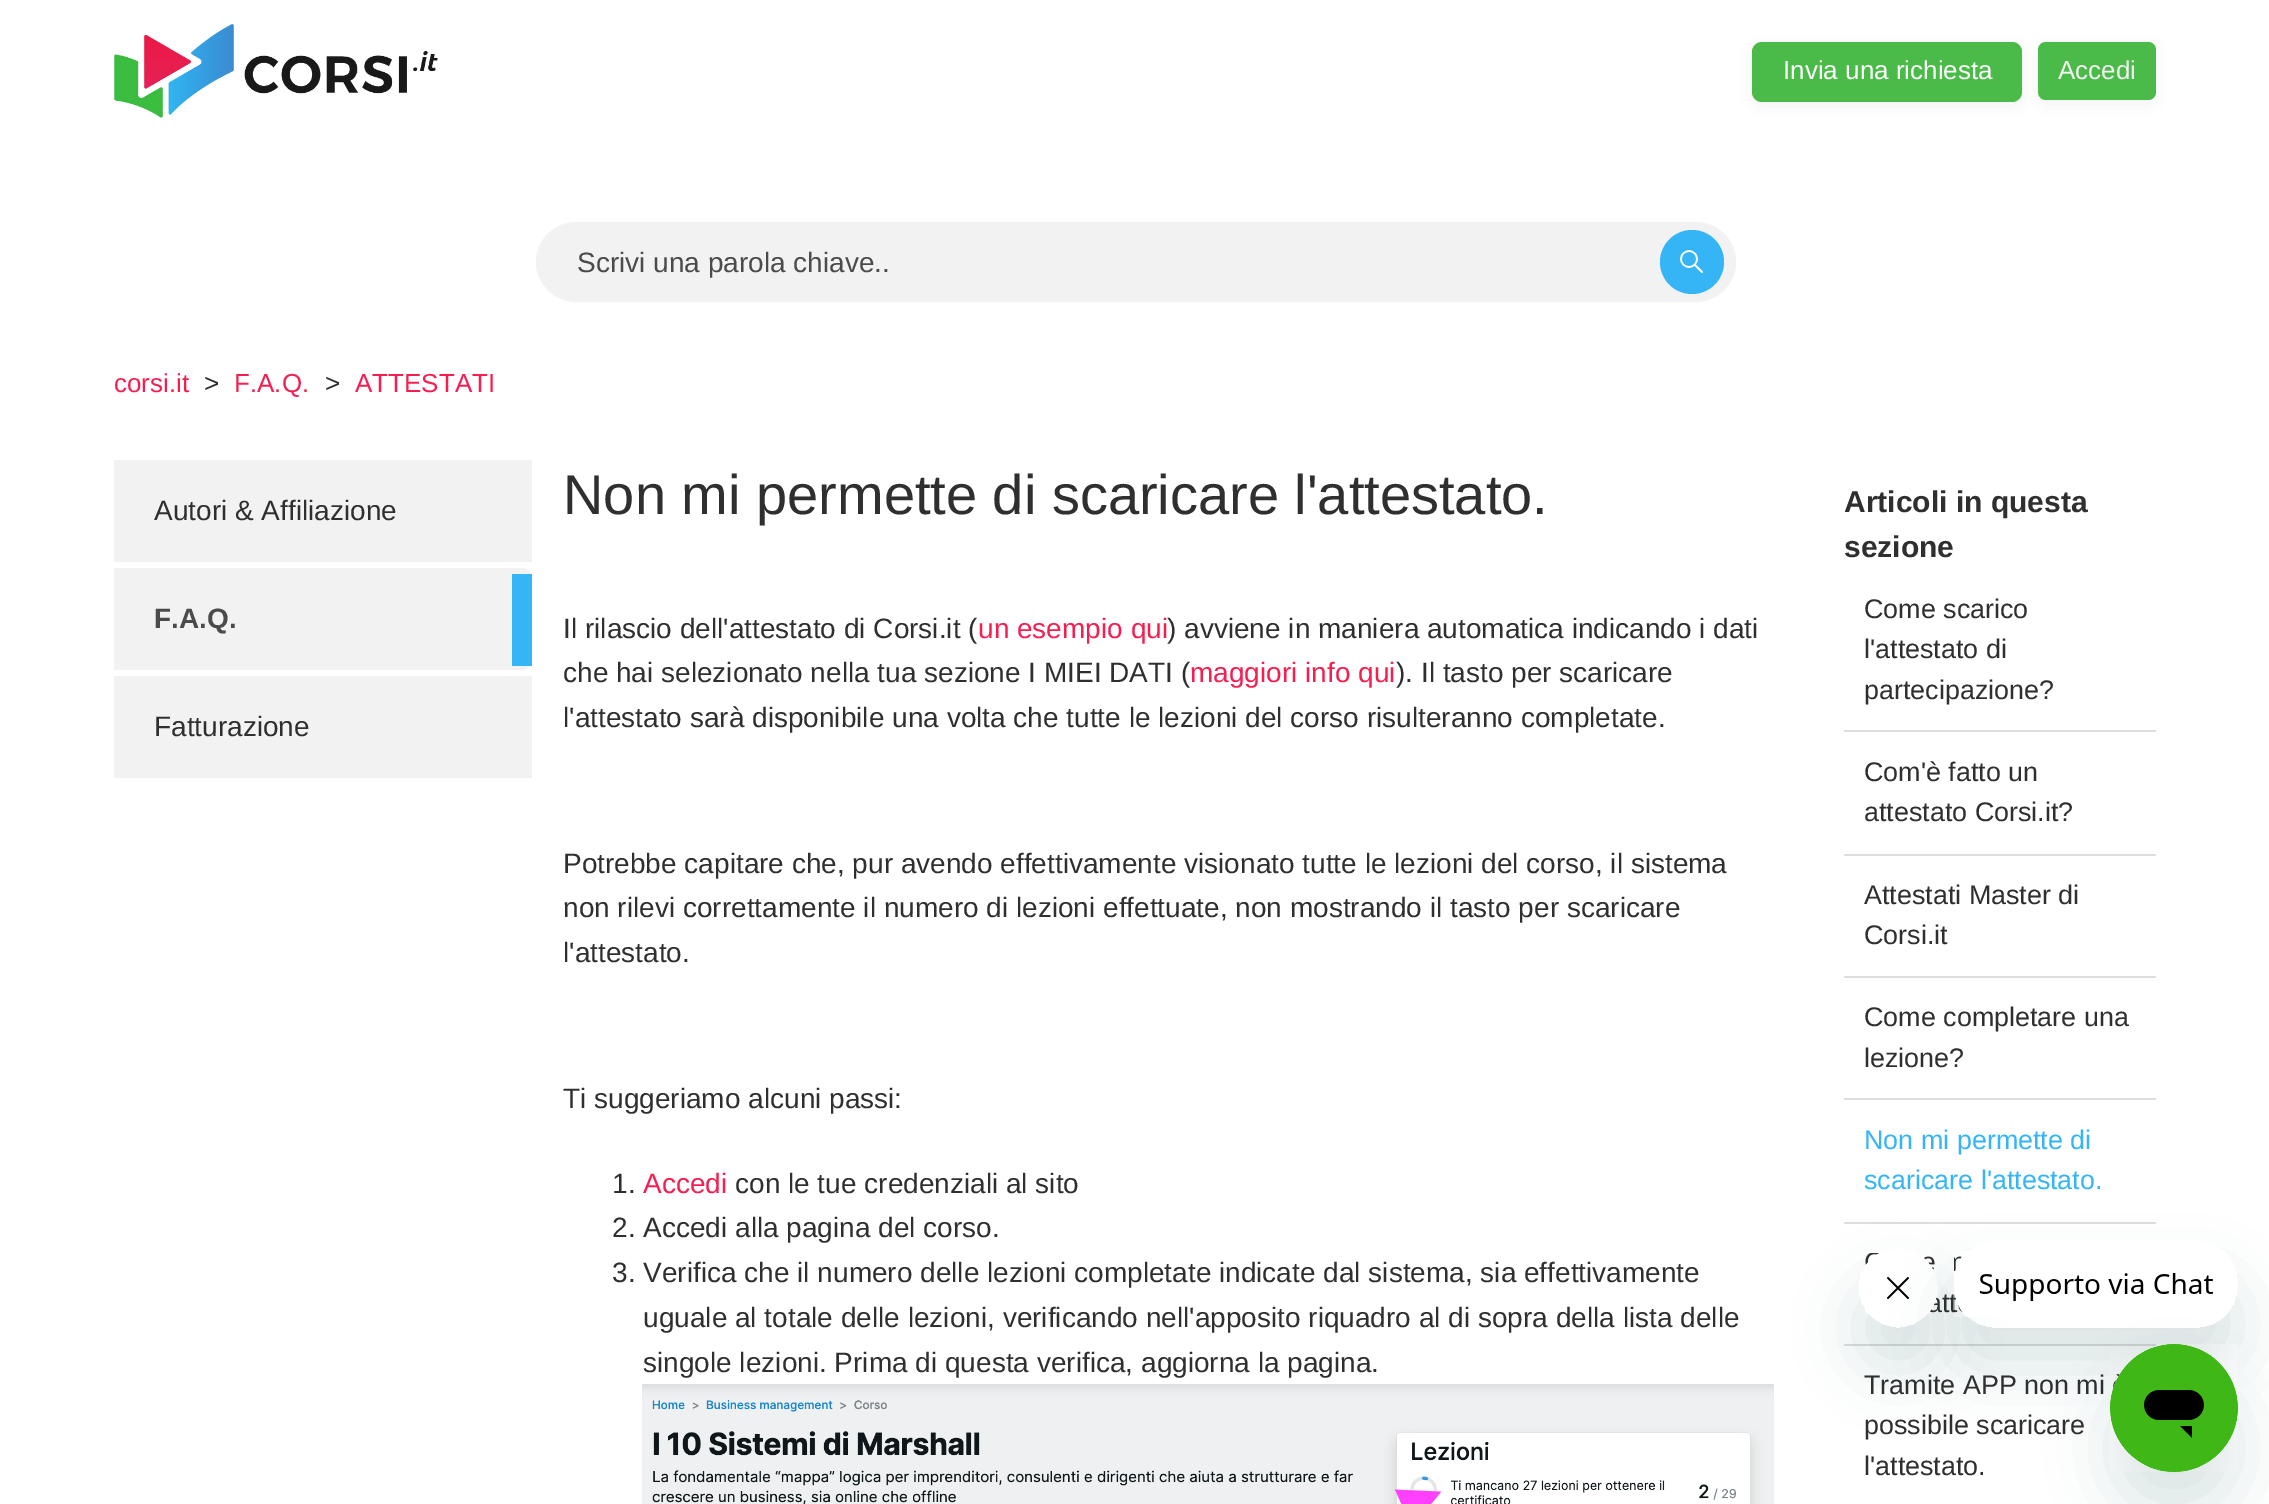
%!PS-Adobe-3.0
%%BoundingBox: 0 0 2269 1504
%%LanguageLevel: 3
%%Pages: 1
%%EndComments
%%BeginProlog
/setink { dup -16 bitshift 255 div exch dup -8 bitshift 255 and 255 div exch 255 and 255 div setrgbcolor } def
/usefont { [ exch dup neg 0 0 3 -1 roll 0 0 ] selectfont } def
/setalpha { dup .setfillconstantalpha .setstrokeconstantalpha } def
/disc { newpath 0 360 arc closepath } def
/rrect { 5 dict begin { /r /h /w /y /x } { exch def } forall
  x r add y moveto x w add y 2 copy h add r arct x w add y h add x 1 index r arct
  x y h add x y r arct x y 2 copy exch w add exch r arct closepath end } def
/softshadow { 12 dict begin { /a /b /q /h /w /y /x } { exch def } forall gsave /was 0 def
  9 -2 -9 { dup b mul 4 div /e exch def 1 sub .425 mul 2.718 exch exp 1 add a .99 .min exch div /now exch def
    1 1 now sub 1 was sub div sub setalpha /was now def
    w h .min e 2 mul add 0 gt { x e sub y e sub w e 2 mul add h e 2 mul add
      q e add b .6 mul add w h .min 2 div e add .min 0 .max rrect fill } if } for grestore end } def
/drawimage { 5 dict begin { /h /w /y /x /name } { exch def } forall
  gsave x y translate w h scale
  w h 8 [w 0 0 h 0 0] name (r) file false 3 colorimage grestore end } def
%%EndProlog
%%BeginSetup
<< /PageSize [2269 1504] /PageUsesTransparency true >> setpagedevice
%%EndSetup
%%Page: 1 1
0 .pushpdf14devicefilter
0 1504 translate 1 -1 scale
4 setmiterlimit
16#FFFFFF setink
0 0 2269 1504 rectfill
(img1.raw) 114 24 324 94 drawimage
16#F2F2F2 setink
2038 46 118 58 8 8 1 softshadow
16#4ABA48 setink
2038 42 118 58 8 rrect fill
16#F2F2F2 setink
1752 46 270 60 10 8 1 softshadow
16#4ABA48 setink
1752 42 270 60 10 rrect fill
/LiberationSans-Regular 26 usefont
16#FFFFFF setink
1783 79 moveto (Invia una richiesta) show
16#F2F2F2 setink
2058 79 moveto (Accedi) show
537 223 1198 78 39 rrect gsave fill grestore
2 setlinewidth
stroke
/LiberationSans-Regular 28 usefont
16#4B4B4B setink
577 272 moveto (Scrivi una parola chiave..) show
16#35B5F6 setink
1692 262 32 disc fill
(img2.raw) 1680 250 23 23 drawimage
/LiberationSans-Regular 26 usefont
16#F61E51 setink
114 392 moveto (corsi.it) show
16#2F2F2F setink
204 392 moveto (>) show
16#F61E51 setink
234 392 moveto (F.A.Q.) show
16#2F2F2F setink
325 392 moveto (>) show
16#F61E51 setink
355 392 moveto (ATTESTATI) show
16#F2F2F2 setink
114 460 418 102 rectfill
/LiberationSans-Regular 28 usefont
16#2F2F2F setink
154 520 moveto (Autori & Affiliazione) show
16#F2F2F2 setink
114 568 moveto 522 568 lineto 527.5 568 532 572.5 532 578 curveto 532 660 lineto 532 665.5 527.5 670 522 670 curveto 114 670 lineto closepath fill
16#35B5F6 setink
512 574 20 92 rectfill
/LiberationSans-Bold 28 usefont
16#4B4B4B setink
154 628 moveto (F.A.Q.) show
16#F2F2F2 setink
114 676 418 102 rectfill
/LiberationSans-Regular 28 usefont
16#2F2F2F setink
154 736 moveto (Fatturazione) show
/LiberationSans-Regular 56 usefont
563 514 moveto (Non mi permette di scaricare l'attestato.) show
/LiberationSans-Regular 28 usefont
563 638 moveto (Il rilascio dell'attestato di Corsi.it \() show
16#F61E51 setink
978 638 moveto (un esempio qui) show
16#2F2F2F setink
1167 638 moveto (\) avviene in maniera automatica indicando i dati) show
563 682 moveto (che hai selezionato nella tua sezione I MIEI DATI \() show
16#F61E51 setink
1190 682 moveto (maggiori info qui) show
16#2F2F2F setink
[
    [(\). Il tasto per scaricare) 1396 682]
    [(l'attestato sarà disponibile una volta che tutte le lezioni del corso risulteranno completate.) 563 727]
    [(Potrebbe capitare che, pur avendo effettivamente visionato tutte le lezioni del corso, il sistema) 563 873]
    [(non rilevi correttamente il numero di lezioni effettuate, non mostrando il tasto per scaricare) 563 917]
    [(l'attestato.) 563 962]
    [(Ti suggeriamo alcuni passi:) 563 1108]
    [(1.) 612 1193]
] { aload pop moveto show } forall
16#F61E51 setink
643 1193 moveto (Accedi) show
16#2F2F2F setink
[
    [(con le tue credenziali al sito) 735 1193]
    [(2. Accedi alla pagina del corso.) 612 1237]
    [(3. Verifica che il numero delle lezioni completate indicate dal sistema, sia effettivamente) 612 1282]
    [(uguale al totale delle lezioni, verificando nell'apposito riquadro al di sopra della lista delle) 643 1327]
    [(singole lezioni. Prima di questa verifica, aggiorna la pagina.) 643 1372]
] { aload pop moveto show } forall
(img3.raw) 642 1384 1132 120 drawimage
/LiberationSans-Bold 30 usefont
1844 512 moveto (Articoli in questa) show
1844 557 moveto (sezione) show
16#DDDDDD setink
1844 730 312 2 rectfill
/LiberationSans-Regular 26.9 usefont
16#2F2F2F setink
[
    [(Come scarico) 1864 618]
    [(l'attestato di) 1864 658]
    [(partecipazione?) 1864 699]
] { aload pop moveto show } forall
16#DDDDDD setink
1844 854 312 2 rectfill
16#2F2F2F setink
1864 781 moveto (Com'è fatto un) show
1864 821 moveto (attestato Corsi.it?) show
16#DDDDDD setink
1844 976 312 2 rectfill
16#2F2F2F setink
1864 904 moveto (Attestati Master di) show
1864 944 moveto (Corsi.it) show
16#DDDDDD setink
1844 1098 312 2 rectfill
16#2F2F2F setink
1864 1026 moveto (Come completare una) show
1864 1067 moveto (lezione?) show
16#DDDDDD setink
1844 1222 312 2 rectfill
16#35B5F6 setink
1864 1149 moveto (Non mi permette di) show
1864 1189 moveto (scaricare l'attestato.) show
16#DDDDDD setink
1844 1344 312 2 rectfill
16#2F2F2F setink
[
    [(att) 1927 1312]
    [(Tramite APP non mi) 1864 1394]
    [(possibile scaricare) 1864 1434]
    [(l'attestato.) 1864 1475]
] { aload pop moveto show } forall
gsave
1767 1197 moveto 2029 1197 lineto 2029 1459 lineto 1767 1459 lineto closepath 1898 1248 moveto 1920 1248 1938 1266 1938 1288 curveto 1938 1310 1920 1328 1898 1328 curveto 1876 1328 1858 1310 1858 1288 curveto 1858 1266 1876 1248 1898 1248 curveto closepath eoclip newpath
16#17494D setink
1858 1288 80 80 40 30 0.15 softshadow
grestore
(img5.raw) 1865 1253 72 60 drawimage
gsave
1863 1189 moveto 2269 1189 lineto 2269 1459 lineto 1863 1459 lineto closepath 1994 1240 moveto 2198 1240 lineto 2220 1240 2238 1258 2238 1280 curveto 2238 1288 lineto 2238 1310 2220 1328 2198 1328 curveto 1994 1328 lineto 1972 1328 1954 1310 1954 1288 curveto 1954 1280 lineto 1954 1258 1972 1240 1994 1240 curveto closepath eoclip newpath
16#17494D setink
1954 1280 284 88 40 30 0.15 softshadow
grestore
(img4.raw) 1954 1251 259 66 drawimage
16#17494D setink
2110 1384 128 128 64 30 0.15 softshadow
(img6.raw) 2110 1344 128 128 drawimage
.poppdf14devicefilter showpage
%%EOF
